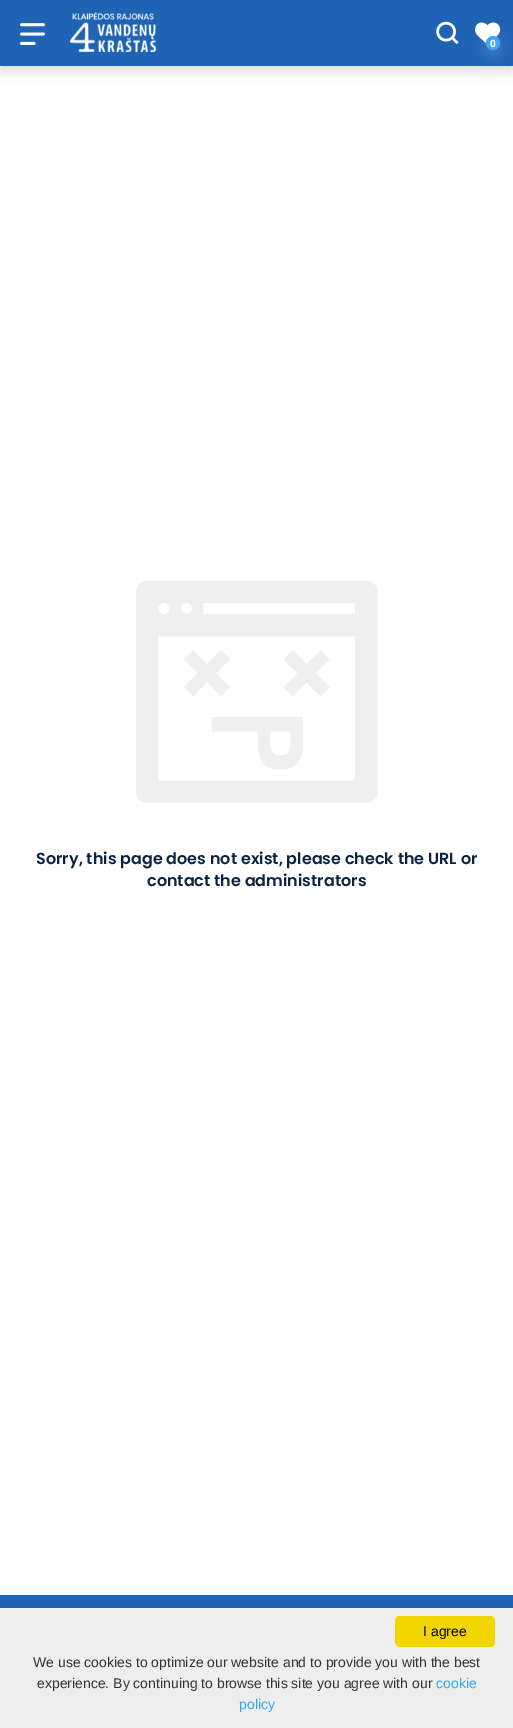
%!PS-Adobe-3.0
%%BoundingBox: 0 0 513 1728
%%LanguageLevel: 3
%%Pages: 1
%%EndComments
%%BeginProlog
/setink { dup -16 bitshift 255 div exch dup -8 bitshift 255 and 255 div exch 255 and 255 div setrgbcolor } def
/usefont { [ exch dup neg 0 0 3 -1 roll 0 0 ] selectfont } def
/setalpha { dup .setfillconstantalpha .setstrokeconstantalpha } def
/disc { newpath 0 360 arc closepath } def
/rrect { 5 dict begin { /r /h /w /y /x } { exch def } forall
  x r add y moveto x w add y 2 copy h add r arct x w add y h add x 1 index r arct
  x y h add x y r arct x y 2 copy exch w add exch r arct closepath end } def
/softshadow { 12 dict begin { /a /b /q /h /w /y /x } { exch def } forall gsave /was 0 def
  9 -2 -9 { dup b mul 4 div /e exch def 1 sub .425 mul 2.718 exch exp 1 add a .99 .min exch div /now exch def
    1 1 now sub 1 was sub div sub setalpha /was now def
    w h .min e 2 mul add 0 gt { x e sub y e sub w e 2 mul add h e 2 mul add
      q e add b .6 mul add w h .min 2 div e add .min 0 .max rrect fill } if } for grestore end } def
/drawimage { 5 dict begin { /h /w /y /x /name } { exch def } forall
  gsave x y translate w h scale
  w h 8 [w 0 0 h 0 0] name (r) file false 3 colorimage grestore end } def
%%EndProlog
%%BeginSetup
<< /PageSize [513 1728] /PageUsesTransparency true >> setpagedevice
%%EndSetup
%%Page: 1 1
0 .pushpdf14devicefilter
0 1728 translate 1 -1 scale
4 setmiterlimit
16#FFFFFF setink
0 0 513 1728 rectfill
16#000000 setink
0 4 513 66 0 7 0.16 softshadow
16#1F63B4 setink
0 0 513 66 rectfill
(img1.raw) 20 23 25 22 drawimage
(img2.raw) 70 12 86 40 drawimage
(img3.raw) 436 21 23 24 drawimage
(img4.raw) 475 22 26 22 drawimage
16#FFFFFF setink
486 40 14 14 7 7 0.16 softshadow
16#42A5F5 setink
493 43 7 disc fill
/OpenSans-Bold 10 usefont
16#FFFFFF setink
490 47 moveto (0) show
(img5.raw) 136 581 242 222 drawimage
/Poppins-SemiBold 16 usefont
16#092443 setink
36 864 moveto (Sorry, this page does not exist, please check the URL or) show
147 886 moveto (contact the administrators) show
16#1F63B4 setink
0 1595 513 13 rectfill
16#EEEEEE setink
0 1608 513 120 rectfill
16#F1D600 setink
395 1616 100 31 5 rrect fill
/LiberationSans-Regular 14 usefont
16#000000 setink
423 1636 moveto (I agree) show
16#333333 setink
33 1667 moveto (We use cookies to optimize our website and to provide you with the best) show
37 1688 moveto (experience. By continuing to browse this site you agree with our) show
16#31A8F0 setink
436 1688 moveto (cookie) show
239 1709 moveto (policy) show
.poppdf14devicefilter showpage
%%EOF
